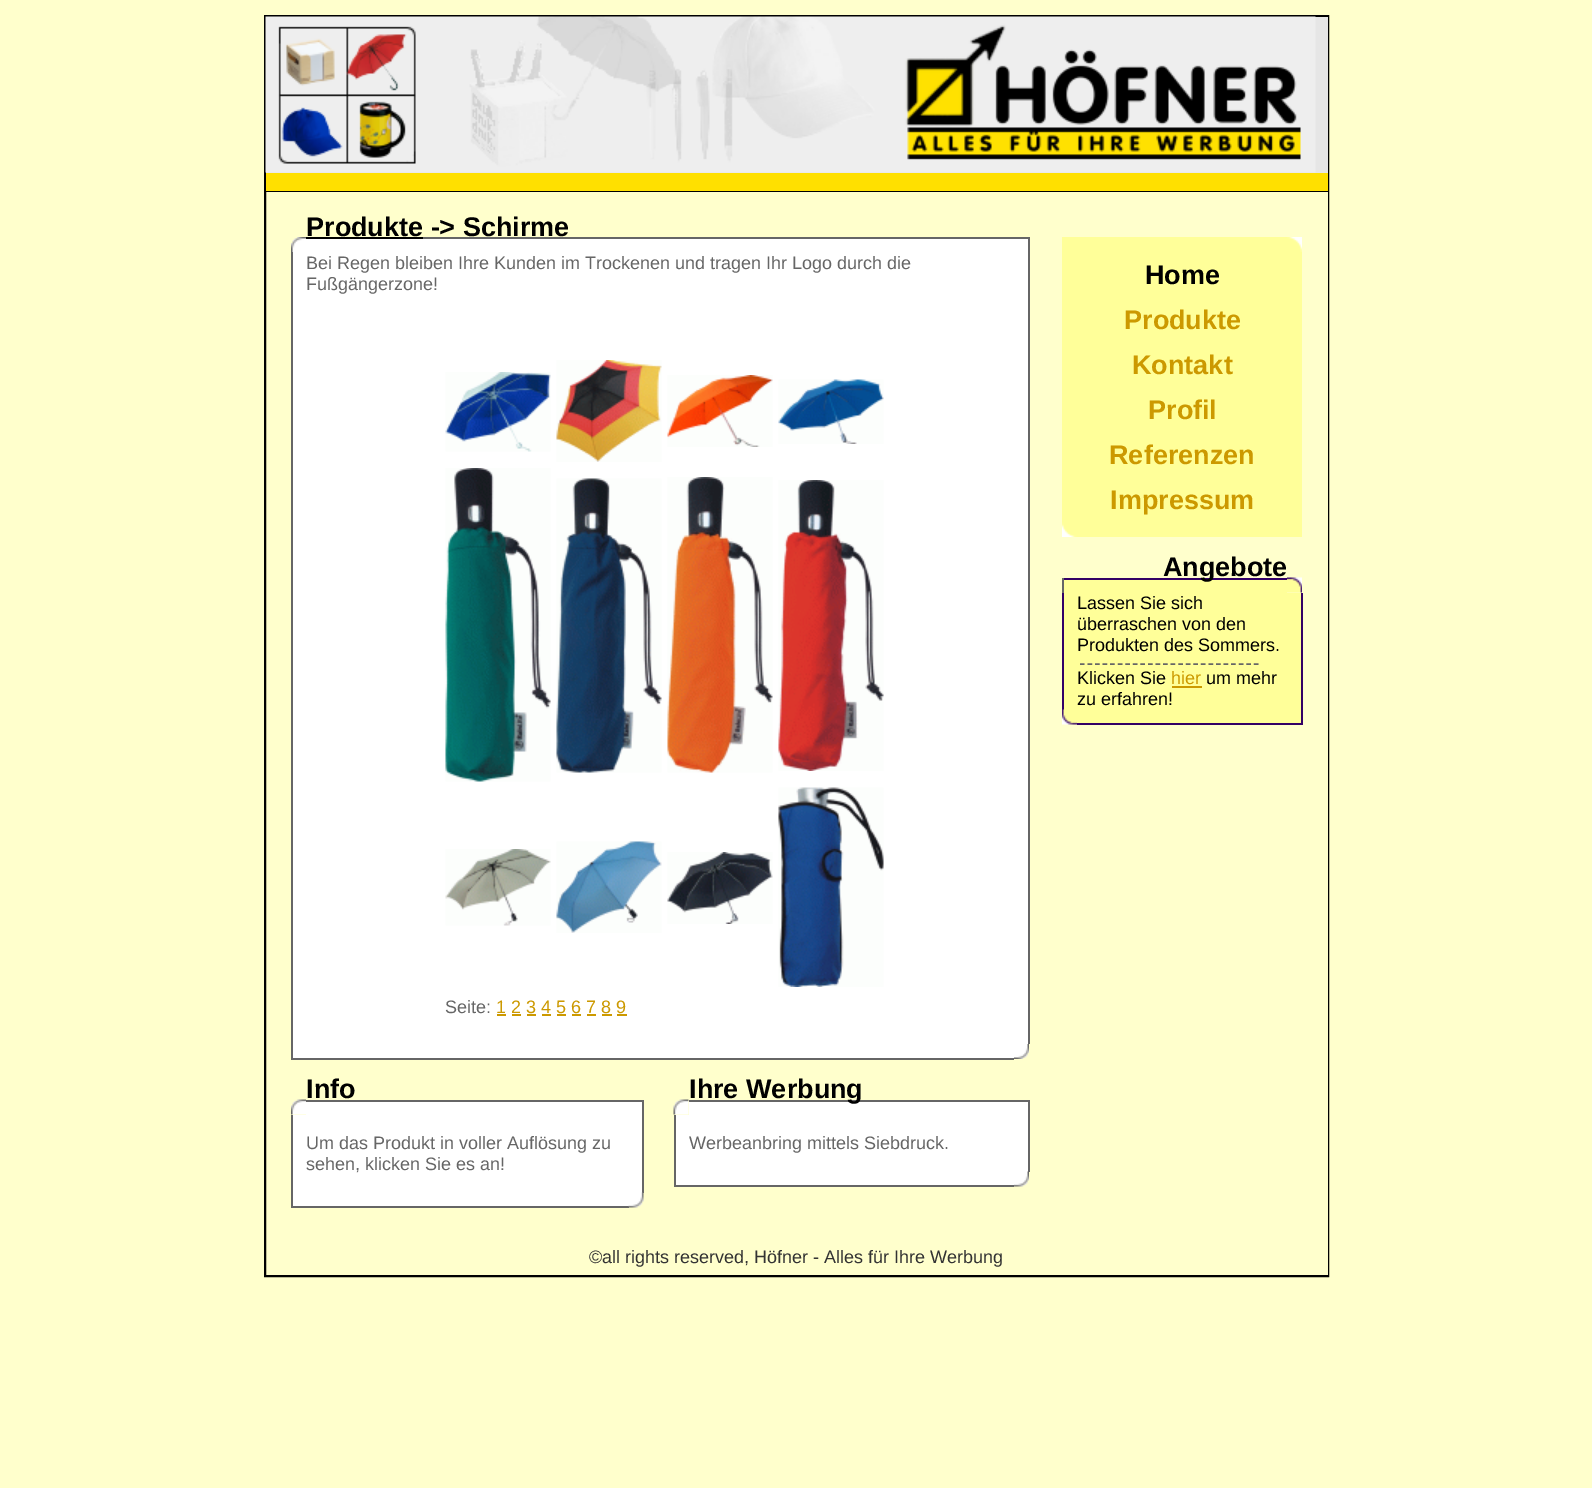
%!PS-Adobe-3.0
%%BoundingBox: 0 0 1592 1488
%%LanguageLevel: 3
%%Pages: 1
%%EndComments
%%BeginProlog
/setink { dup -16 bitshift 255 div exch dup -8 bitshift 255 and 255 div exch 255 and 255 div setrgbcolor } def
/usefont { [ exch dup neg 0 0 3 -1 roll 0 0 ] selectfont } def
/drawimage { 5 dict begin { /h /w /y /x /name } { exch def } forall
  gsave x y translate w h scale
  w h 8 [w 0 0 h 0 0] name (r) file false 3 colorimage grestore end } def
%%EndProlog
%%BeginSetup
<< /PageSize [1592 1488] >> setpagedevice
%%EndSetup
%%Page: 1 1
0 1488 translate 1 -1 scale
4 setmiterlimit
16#FFFFCC setink
0 0 1592 1488 rectfill
16#000000 setink
2 setlinewidth
265 16 1063 1260 rectstroke
16#E6E6E6 setink
266 17 1062 156 rectfill
(img1.raw) 265 16 1051 157 drawimage
[
    [266 173 1062 18 16#FFE000]
    [266 191 1062 1 16#000000]
    [1327 192 1 1083 16#FFFFCC]
] { aload pop setink rectfill } forall
/LiberationSans-Bold 27 usefont
16#000000 setink
306 236 moveto (Produkte -> Schirme) show
306 237 117 2 rectfill
(img2.raw) 291 237 15 15 drawimage
[
    [306 239 722 13 16#FFFFFF]
    [423 237 606 2 16#666666]
    [1028 237 2 807 16#666666]
    [293 252 735 792 16#FFFFFF]
    [291 252 2 792 16#666666]
] { aload pop setink rectfill } forall
/LiberationSans-Regular 18 usefont
306 269 moveto (Bei Regen bleiben Ihre Kunden im Trockenen und tragen Ihr Logo durch die) show
306 290 moveto (Fußgängerzone!) show
(img3.raw) 445 372 106 80 drawimage
(img4.raw) 556 360 106 102 drawimage
(img5.raw) 667 375 106 72 drawimage
(img6.raw) 778 379 106 65 drawimage
(img7.raw) 445 468 106 314 drawimage
(img8.raw) 556 478 106 295 drawimage
(img9.raw) 667 477 106 296 drawimage
(img10.raw) 778 480 106 291 drawimage
(img11.raw) 445 849 106 77 drawimage
(img12.raw) 556 841 106 92 drawimage
(img13.raw) 667 852 106 72 drawimage
(img14.raw) 778 787 106 200 drawimage
445 1013 moveto (Seite:) show
16#CC9900 setink
496 1013 moveto (1 2 3 4 5 6 7 8 9) show
[
    [497 1014 9 2 16#CC9900]
    [512 1014 9 2 16#CC9900]
    [527 1014 9 2 16#CC9900]
    [542 1014 9 2 16#CC9900]
    [557 1014 9 2 16#CC9900]
    [572 1014 9 2 16#CC9900]
    [587 1014 9 2 16#CC9900]
    [602 1014 10 2 16#CC9900]
    [617 1014 10 2 16#CC9900]
    [293 1044 721 14 16#FFFFFF]
    [291 1058 723 2 16#666666]
    [291 1044 2 15 16#666666]
] { aload pop setink rectfill } forall
(img15.raw) 1014 1044 15 15 drawimage
/LiberationSans-Bold 27 usefont
16#000000 setink
306 1098 moveto (Info) show
(img16.raw) 291 1099 15 16 drawimage
[
    [306 1102 336 13 16#FFFFFF]
    [306 1100 338 2 16#666666]
    [642 1100 2 93 16#666666]
    [293 1115 349 78 16#FFFFFF]
    [291 1115 2 78 16#666666]
] { aload pop setink rectfill } forall
/LiberationSans-Regular 18 usefont
306 1149 moveto (Um das Produkt in voller Auflösung zu) show
306 1170 moveto (sehen, klicken Sie es an!) show
[
    [293 1193 336 13 16#FFFFFF]
    [291 1206 338 2 16#666666]
    [291 1193 2 15 16#666666]
] { aload pop setink rectfill } forall
(img17.raw) 628 1192 16 16 drawimage
16#FFFFFF setink
689 1102 339 13 rectfill
16#666666 setink
689 1100 340 2 rectfill
/LiberationSans-Bold 27 usefont
16#000000 setink
689 1098 moveto (Ihre Werbung) show
(img18.raw) 673 1099 16 16 drawimage
[
    [1028 1100 2 72 16#666666]
    [676 1115 352 57 16#FFFFFF]
    [674 1115 2 57 16#666666]
] { aload pop setink rectfill } forall
/LiberationSans-Regular 18 usefont
689 1149 moveto (Werbeanbring mittels Siebdruck.) show
[
    [676 1172 338 13 16#FFFFFF]
    [674 1185 340 2 16#666666]
    [674 1172 2 15 16#666666]
] { aload pop setink rectfill } forall
(img19.raw) 1014 1171 15 16 drawimage
16#FFFF99 setink
1062 237 225 15 rectfill
(img20.raw) 1287 237 15 15 drawimage
1062 252 240 270 rectfill
/LiberationSans-Bold 27 usefont
16#000000 setink
1145 284 moveto (Home) show
16#CC9900 setink
[
    [(Produkte) 1124 329]
    [(Kontakt) 1132 374]
    [(Profil) 1148 419]
    [(Referenzen) 1109 464]
    [(Impressum) 1110 509]
] { aload pop moveto show } forall
(img21.raw) 1062 522 15 15 drawimage
[
    [1077 522 225 15 16#FFFF99]
    [1064 580 223 13 16#FFFF99]
    [1062 578 225 2 16#330066]
] { aload pop setink rectfill } forall
16#000000 setink
1163 576 moveto (Angebote) show
16#666666 setink
1062 578 2 15 rectfill
(img22.raw) 1287 577 15 16 drawimage
[
    [1064 593 237 117 16#FFFF99]
    [1062 593 2 117 16#330066]
    [1301 593 2 132 16#330066]
] { aload pop setink rectfill } forall
/LiberationSans-Regular 18 usefont
16#000000 setink
[
    [(Lassen Sie sich) 1077 609]
    [(überraschen von den) 1077 630]
    [(Produkten des Sommers.) 1077 651]
] { aload pop moveto show } forall
16#666666 setink
1.5 setlinewidth
[4.5 3.06] 0 setdash
1080 664 moveto 1258.5 664 lineto stroke
16#000000 setink
1077 684 moveto (Klicken Sie) show
16#CC9900 setink
1171 684 moveto (hier) show
1172 686 30 2 rectfill
16#000000 setink
1206 684 moveto (um mehr) show
1077 705 moveto (zu erfahren!) show
(img23.raw) 1062 709 15 16 drawimage
16#FFFF99 setink
1077 710 224 13 rectfill
16#330066 setink
1077 723 225 2 rectfill
16#333333 setink
589 1263 moveto (©all rights reserved, Höfner - Alles für Ihre Werbung) show
showpage
%%EOF
